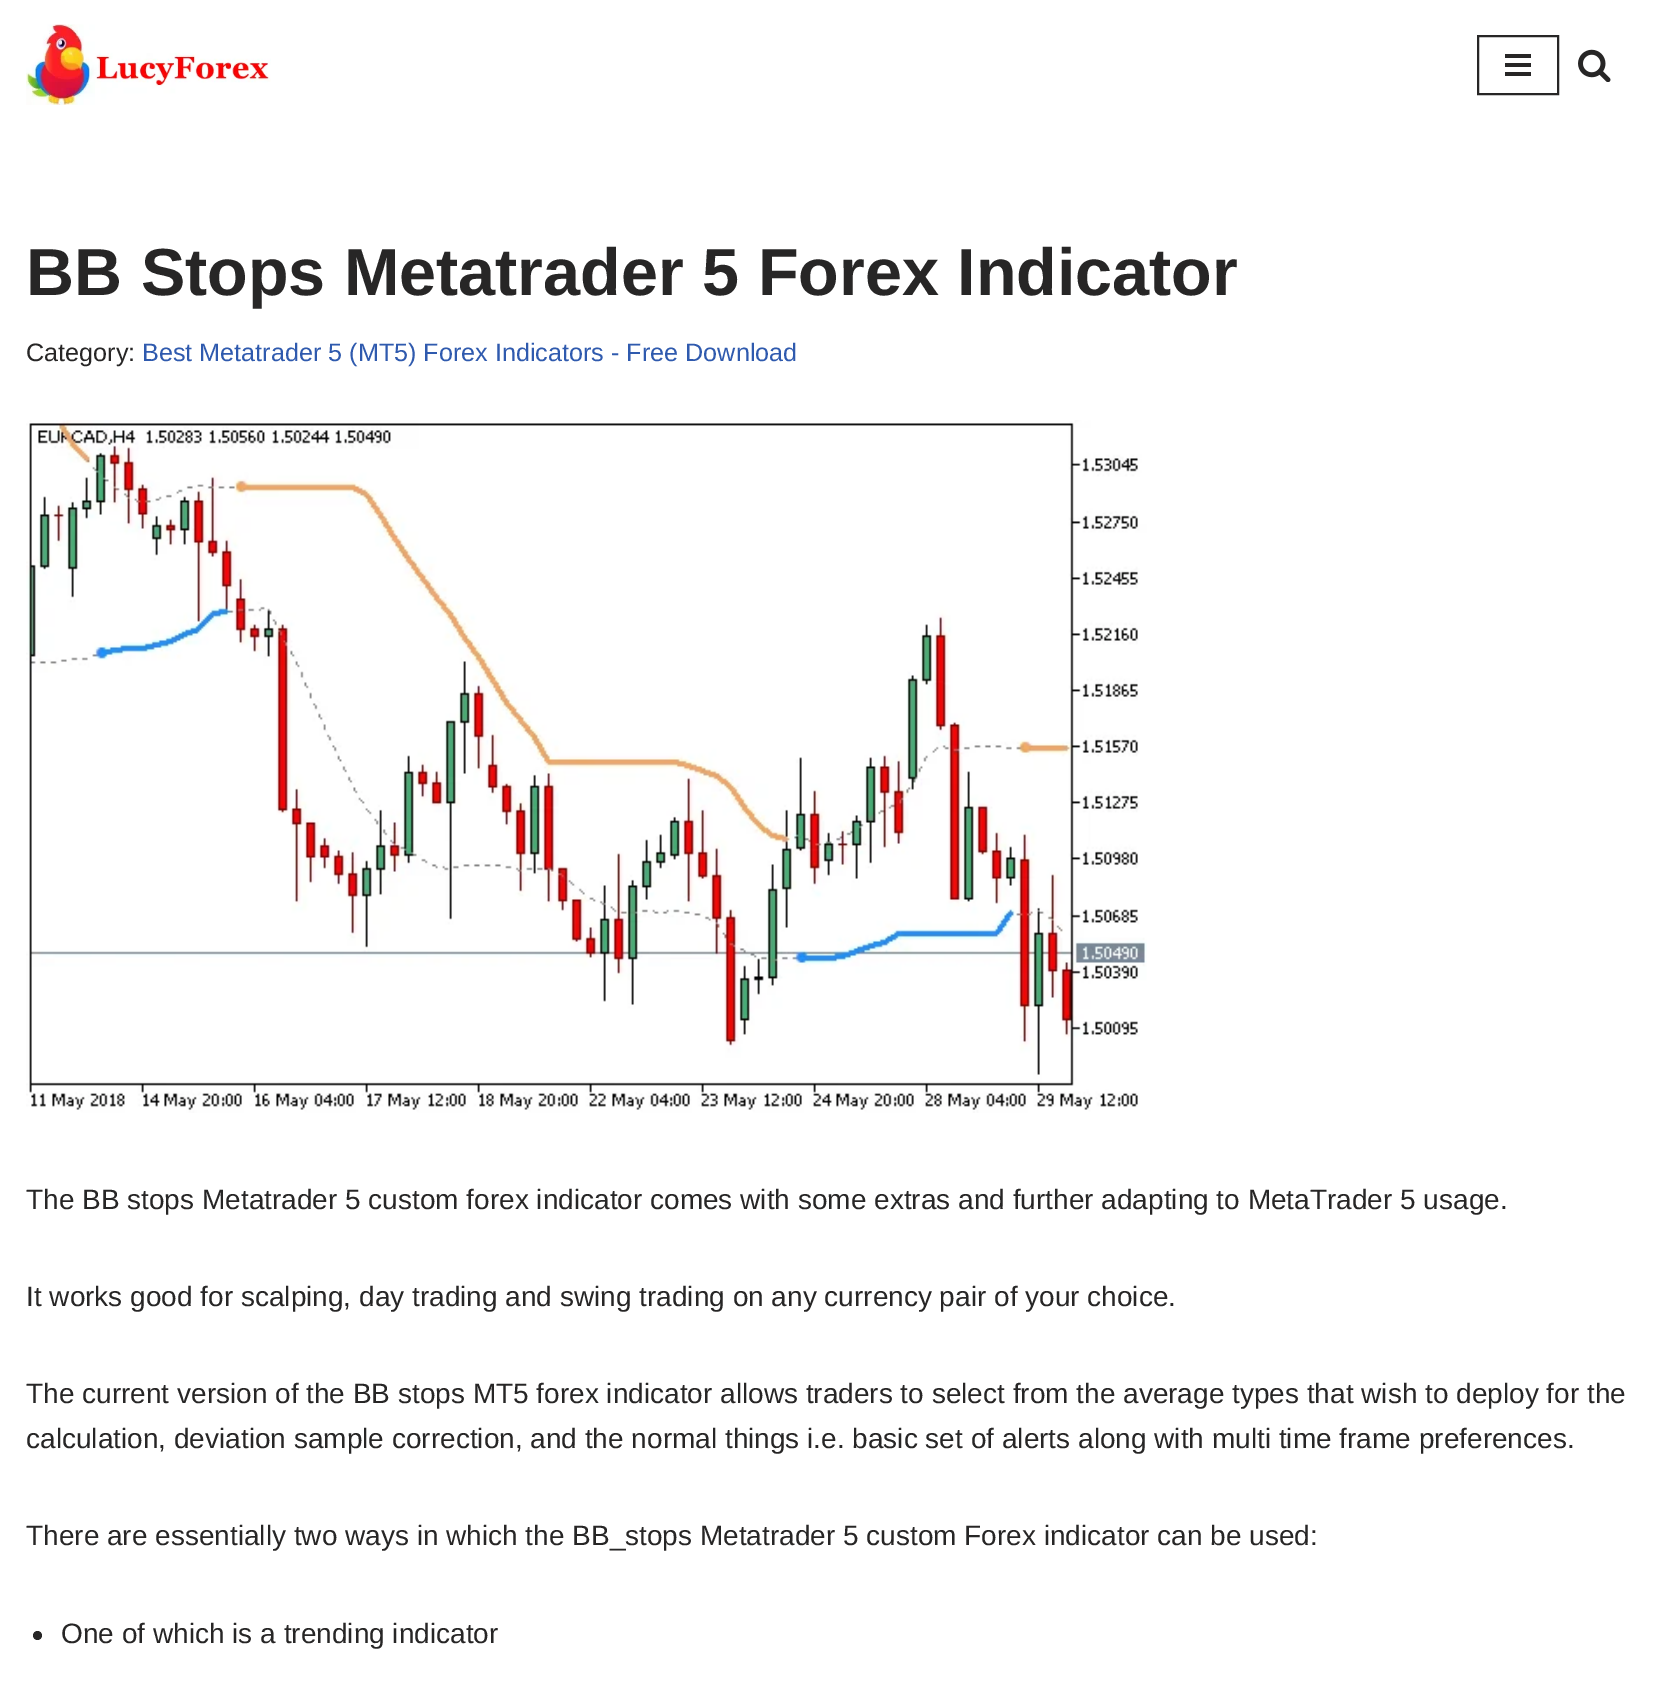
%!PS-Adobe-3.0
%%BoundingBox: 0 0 1655 1688
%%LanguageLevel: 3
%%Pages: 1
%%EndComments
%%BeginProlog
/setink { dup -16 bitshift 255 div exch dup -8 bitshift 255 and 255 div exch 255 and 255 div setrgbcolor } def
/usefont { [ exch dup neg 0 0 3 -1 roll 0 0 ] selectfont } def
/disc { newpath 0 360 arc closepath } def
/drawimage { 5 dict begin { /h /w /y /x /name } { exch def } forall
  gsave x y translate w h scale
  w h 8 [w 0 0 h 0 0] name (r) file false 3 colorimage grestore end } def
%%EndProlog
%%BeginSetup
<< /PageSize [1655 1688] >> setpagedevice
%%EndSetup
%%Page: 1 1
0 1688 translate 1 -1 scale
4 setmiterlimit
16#FFFFFF setink
0 0 1655 1688 rectfill
(img1.raw) 26 24 245 81 drawimage
16#272626 setink
2 setlinewidth
1478 36 80 58 rectstroke
[
    [1505 54 26 4 16#272626]
    [1505 63 26 4 16#272626]
    [1505 72 26 4 16#272626]
] { aload pop setink rectfill } forall
(img2.raw) 1578 49 33 33 drawimage
/LiberationSans-Bold 66.5 usefont
26 295 moveto (BB Stops Metatrader 5 Forex Indicator) show
/LiberationSans-Regular 25.2 usefont
26 361 moveto (Category:) show
16#2F5AAE setink
142 361 moveto (Best Metatrader 5 \(MT5\) Forex Indicators - Free Download) show
(img3.raw) 26 420 1121 693 drawimage
/LiberationSans-Regular 28 usefont
16#272626 setink
[
    [(The BB stops Metatrader 5 custom forex indicator comes with some extras and further adapting to MetaTrader 5 usage.) 26 1209]
    [(It works good for scalping, day trading and swing trading on any currency pair of your choice.) 26 1306]
    [(The current version of the BB stops MT5 forex indicator allows traders to select from the average types that wish to deploy for the) 26 1403]
    [(calculation, deviation sample correction, and the normal things i.e. basic set of alerts along with multi time frame preferences.) 26 1448]
    [(There are essentially two ways in which the BB_stops Metatrader 5 custom Forex indicator can be used:) 26 1545]
] { aload pop moveto show } forall
37.5 1635.5 4.5 disc fill
61 1643 moveto (One of which is a trending indicator) show
showpage
%%EOF
